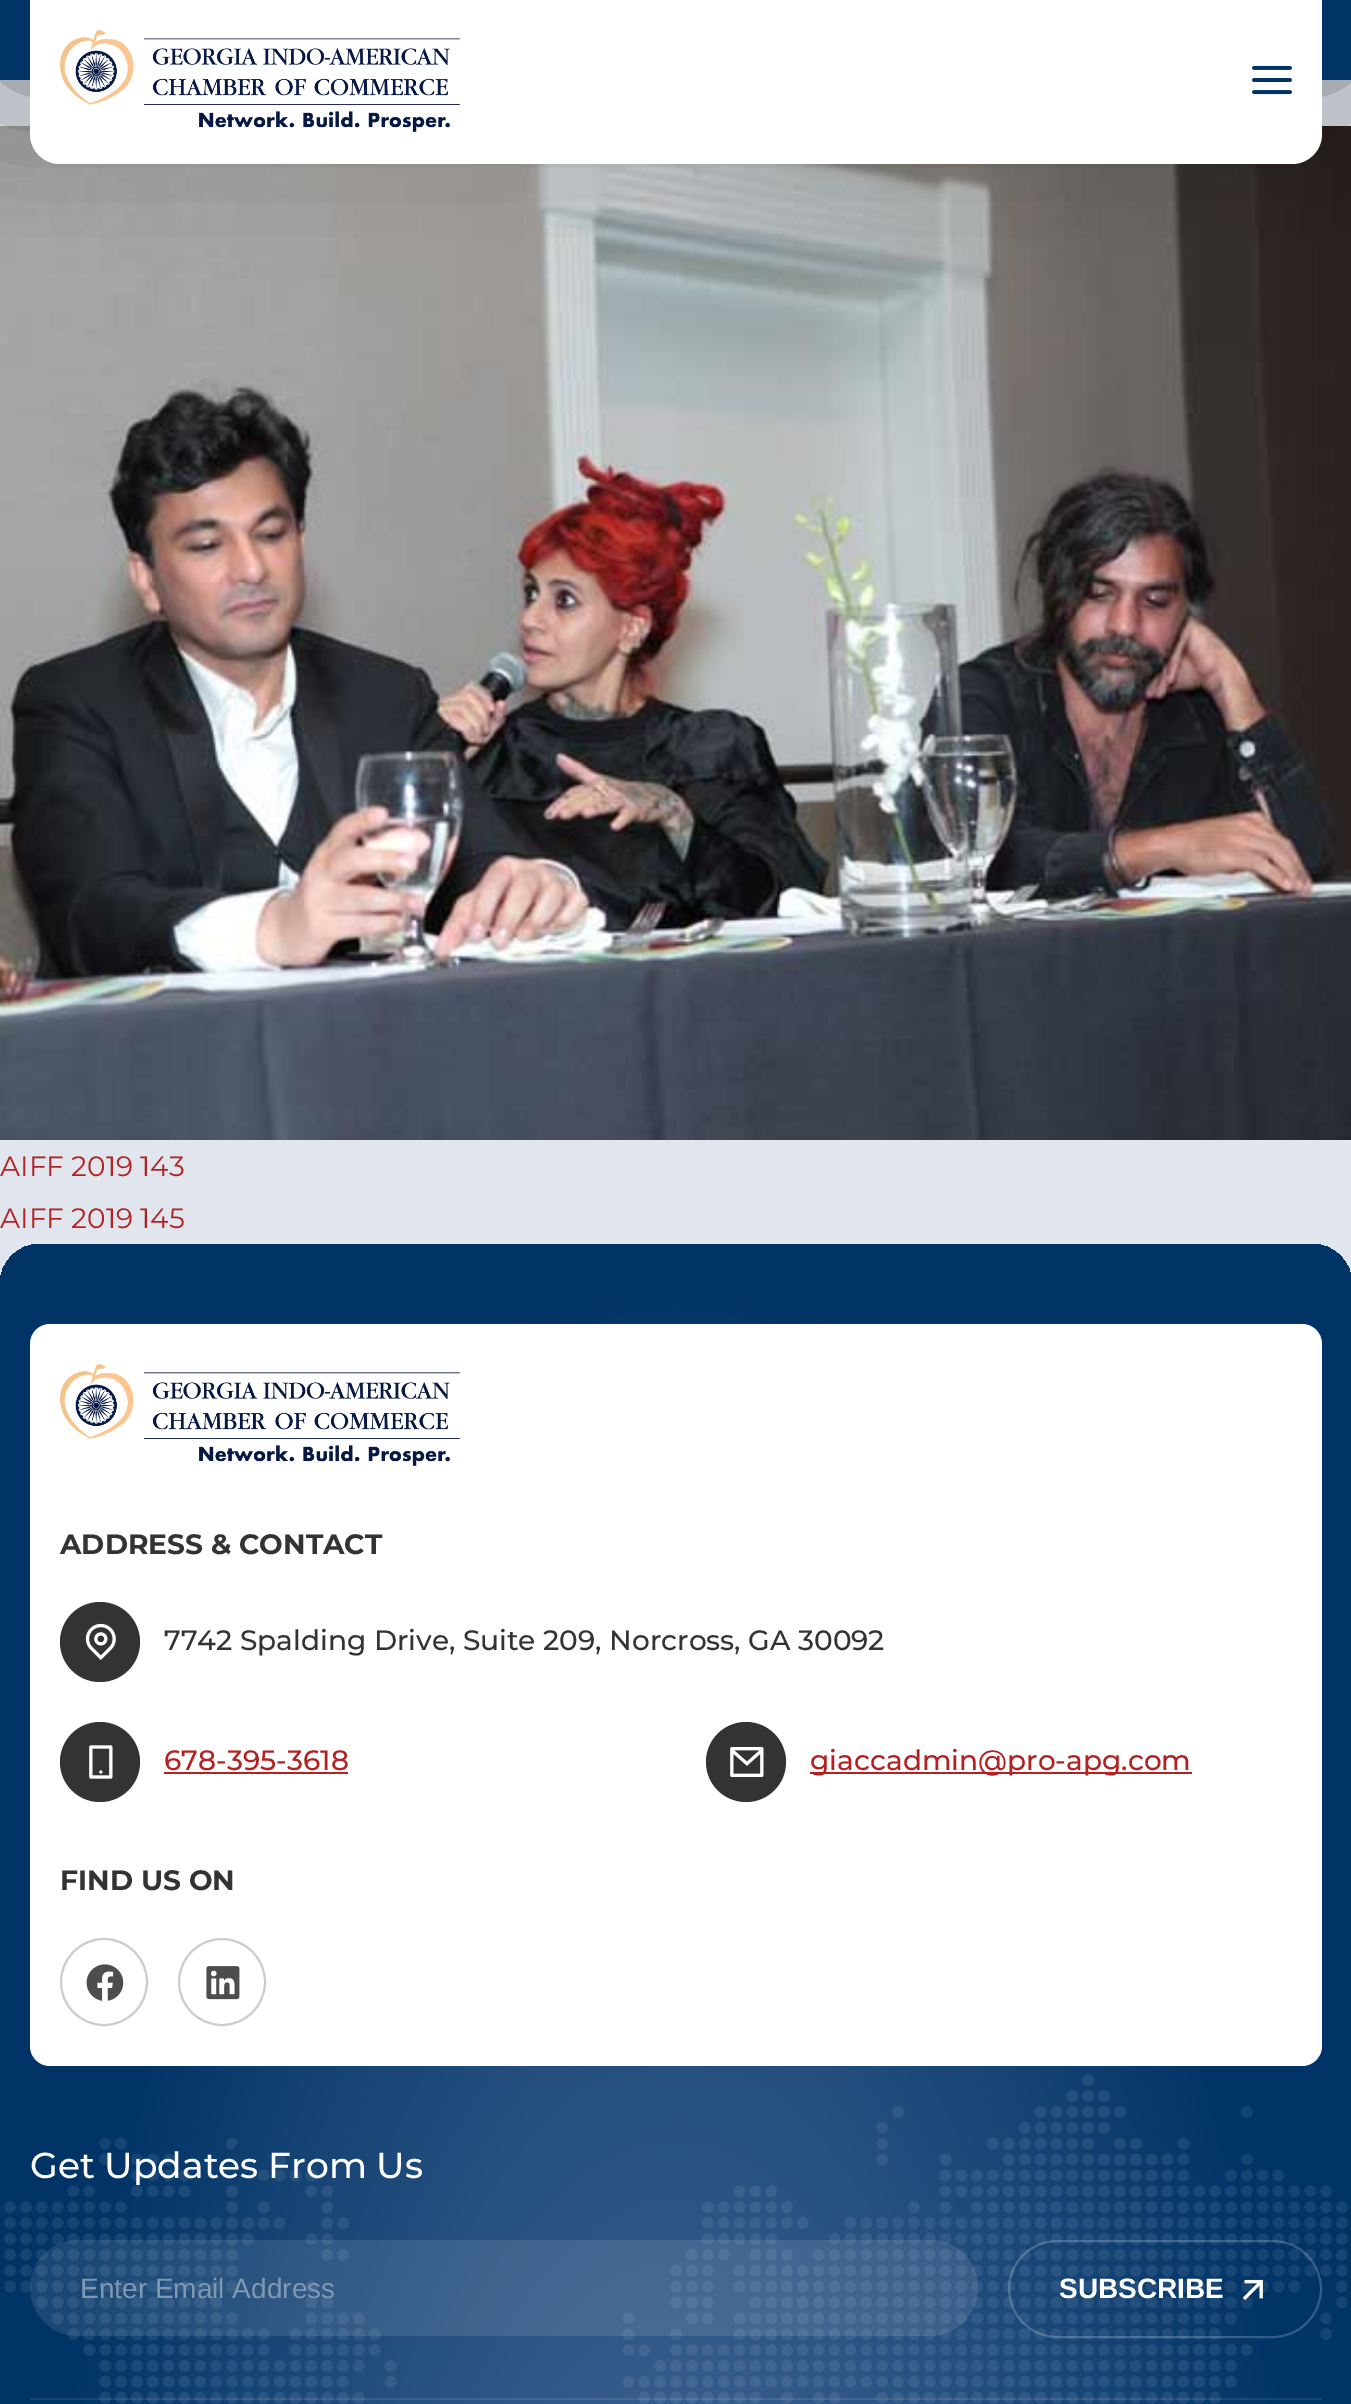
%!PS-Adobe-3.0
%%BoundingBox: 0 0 1351 2404
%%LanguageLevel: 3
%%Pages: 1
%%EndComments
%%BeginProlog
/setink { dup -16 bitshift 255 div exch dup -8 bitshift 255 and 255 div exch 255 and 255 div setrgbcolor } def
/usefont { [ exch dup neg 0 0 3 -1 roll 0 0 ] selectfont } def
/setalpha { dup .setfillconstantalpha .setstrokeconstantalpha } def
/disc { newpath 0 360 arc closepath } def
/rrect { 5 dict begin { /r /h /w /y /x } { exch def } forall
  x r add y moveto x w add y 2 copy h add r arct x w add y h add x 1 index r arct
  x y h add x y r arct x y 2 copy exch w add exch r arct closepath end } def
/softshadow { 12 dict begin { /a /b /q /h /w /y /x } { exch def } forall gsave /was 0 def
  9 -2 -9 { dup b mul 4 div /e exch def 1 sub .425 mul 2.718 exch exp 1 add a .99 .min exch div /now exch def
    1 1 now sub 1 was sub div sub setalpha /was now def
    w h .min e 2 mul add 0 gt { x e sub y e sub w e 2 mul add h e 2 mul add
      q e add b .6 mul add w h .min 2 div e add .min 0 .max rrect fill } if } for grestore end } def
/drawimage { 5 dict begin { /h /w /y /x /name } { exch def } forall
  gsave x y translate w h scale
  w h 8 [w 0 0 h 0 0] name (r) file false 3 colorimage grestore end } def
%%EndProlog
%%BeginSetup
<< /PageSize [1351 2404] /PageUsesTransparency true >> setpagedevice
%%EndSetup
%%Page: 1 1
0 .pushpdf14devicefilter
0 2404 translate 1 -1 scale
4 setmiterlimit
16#E1E5EE setink
0 0 1351 2404 rectfill
(img3.raw) 0 126 1351 1014 drawimage
16#000000 setink
0 0 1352 80 0 70 0.5 softshadow
16#003366 setink
0 0 1351 80 rectfill
16#FFFFFF setink
30 0 moveto 1322 0 lineto 1322 134 lineto 1322 150.5 1308.5 164 1292 164 curveto 60 164 lineto 43.5 164 30 150.5 30 134 curveto closepath fill
(img1.raw) 60 30 400 102 drawimage
(img2.raw) 1252 65 40 30 drawimage
/Montserrat-Regular 28 usefont
16#B22222 setink
0 1176 moveto (AIFF 2019 143) show
0 1228 moveto (AIFF 2019 145) show
gsave 40 1244 moveto 1312 1244 lineto 1334 1244 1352 1262 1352 1284 curveto 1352 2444 lineto 0 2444 lineto 0 1284 lineto 0 1262 18 1244 40 1244 curveto closepath clip newpath 676 3261 translate 676 2017 scale
<< /ShadingType 3 /ColorSpace /DeviceRGB /Coords [0 0 0 0 0 1] /Extend [true true] /Function << /FunctionType 2 /Domain [0 1] /C0 [0.361 0.478 0.647] /C1 [0 0.2 0.4] /N 1 >> >> shfill grestore
16#FFFFFF setink
30 1324 1292 742 20 rrect fill
(img4.raw) 60 1364 400 102 drawimage
/Montserrat-Bold 28 usefont
16#333333 setink
60 1554 moveto (ADDRESS & CONTACT) show
100 1642 40 disc fill
(img5.raw) 85 1623 31 37 drawimage
/Montserrat-Medium 28 usefont
164 1650 moveto (7742 Spalding Drive, Suite 209, Norcross, GA 30092) show
100 1762 40 disc fill
(img6.raw) 89 1745 24 34 drawimage
16#B22222 setink
164 1770 moveto (678-395-3618) show
164 1772 184 2 rectfill
16#333333 setink
746 1762 40 disc fill
(img7.raw) 730 1747 34 30 drawimage
16#B22222 setink
810 1772 382 2 rectfill
810 1770 moveto (giaccadmin@pro-apg.com) show
/Montserrat-Bold 28 usefont
16#333333 setink
60 1890 moveto (FIND US ON) show
16#CCCCCC setink
2 setlinewidth
104 1982 43 disc stroke
(img8.raw) 86 1964 38 37 drawimage
222 1982 43 disc stroke
(img9.raw) 206 1966 34 34 drawimage
(img11.raw) 4 2074 1344 330 drawimage
0.09 setalpha
16#FFFFFF setink
30 2398 1292 2 rectfill
/Montserrat-Medium 36 usefont
1 setalpha
30 2178 moveto (Get Updates From Us) show
0.1 setalpha
30 2240 948 96 48 rrect fill
/LiberationSans-Regular 28 usefont
1 setalpha
16#8099B3 setink
80 2298 moveto (Enter Email Address) show
0.2 setalpha
16#FFFFFF setink
1009 2241 312 96 48 rrect stroke
/LiberationSans-Bold 28 usefont
1 setalpha
1059 2298 moveto (SUBSCRIBE) show
(img10.raw) 1242 2279 21 21 drawimage
.poppdf14devicefilter showpage
%%EOF
